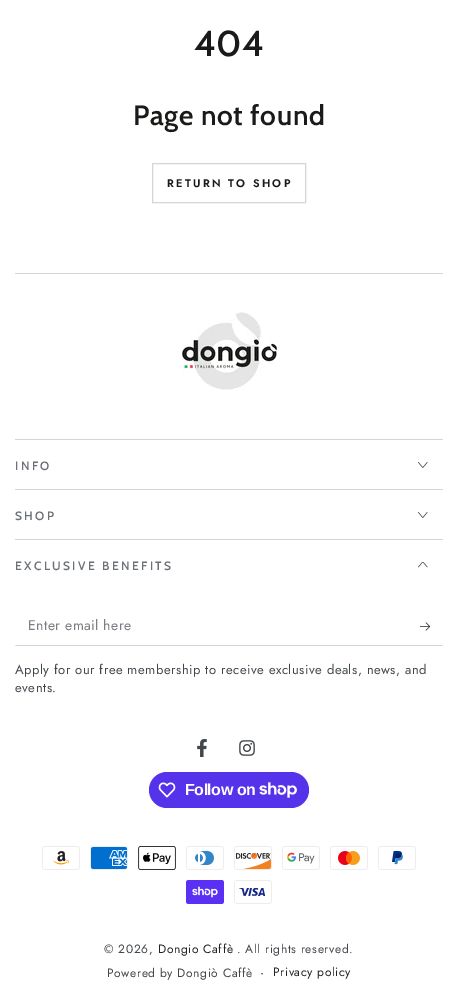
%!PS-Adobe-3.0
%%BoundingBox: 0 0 458 999
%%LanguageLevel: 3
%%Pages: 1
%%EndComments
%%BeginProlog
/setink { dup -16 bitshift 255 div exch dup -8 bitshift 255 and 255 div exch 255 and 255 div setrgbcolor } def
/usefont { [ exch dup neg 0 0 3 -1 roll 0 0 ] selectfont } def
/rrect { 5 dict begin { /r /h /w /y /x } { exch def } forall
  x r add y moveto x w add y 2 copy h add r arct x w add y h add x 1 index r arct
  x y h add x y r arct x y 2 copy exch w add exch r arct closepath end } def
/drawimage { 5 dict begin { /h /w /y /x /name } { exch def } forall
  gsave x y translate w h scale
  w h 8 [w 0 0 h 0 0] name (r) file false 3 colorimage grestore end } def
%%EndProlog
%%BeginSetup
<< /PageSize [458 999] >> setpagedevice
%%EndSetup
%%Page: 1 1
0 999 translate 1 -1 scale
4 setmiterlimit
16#FFFFFF setink
0 0 458 999 rectfill
/Cabin-SemiBold 36 usefont
16#1A1B18 setink
194 56 moveto 0.6 0 (404) ashow
/Cabin-SemiBold 28 usefont
133 125 moveto 0.6 0 (Page not found) ashow
16#D2D5D9 setink
152.5 163.5 153 39 rectstroke
/Jost-SemiBold 11 usefont
16#1A1B18 setink
167 187 moveto 2.25 0 (RETURN TO SHOP) ashow
16#D2D5D9 setink
15 273 428 1 rectfill
15 439 428 1 rectfill
(img1.raw) 182 312 95 78 drawimage
15 489 428 1 rectfill
/Cabin-SemiBold 12 usefont
16#6B7177 setink
15 470 moveto 2.4 0 (INFO) ashow
(img2.raw) 418 462 10 6 drawimage
16#D2D5D9 setink
15 539 428 1 rectfill
16#6B7177 setink
15 520 moveto 2.4 0 (SHOP) ashow
(img2.raw) 418 512 10 6 drawimage
15 570 moveto 2.4 0 (EXCLUSIVE BENEFITS) ashow
(img3.raw) 418 562 10 6 drawimage
16#D2D5D9 setink
443 646 moveto 15 646 lineto 16 645 lineto 442 645 lineto closepath fill
/Jost-Regular 14 usefont
16#7B7E82 setink
28 630 moveto 0.4 0 (Enter email here) ashow
(img4.raw) 420 622 11 9 drawimage
/Jost-Regular 13 usefont
16#42474C setink
15 674 moveto 0.5 0 (Apply for our free membership to receive exclusive deals, news, and) ashow
15 692 moveto 0.5 0 (events.) ashow
(img5.raw) 197 739 10 18 drawimage
(img6.raw) 239 740 16 16 drawimage
16#5433EB setink
149 772 160 36 18 rrect fill
(img7.raw) 158 782 18 16 drawimage
/LiberationSans-Bold 16 usefont
16#FFFFFF setink
185 795 moveto -0.5 0 (Follow on) ashow
(img8.raw) 259 782 38 16 drawimage
(img9.raw) 42 846 38 24 drawimage
(img10.raw) 90 846 38 24 drawimage
(img11.raw) 138 846 38 24 drawimage
(img12.raw) 186 846 38 24 drawimage
(img13.raw) 234 846 38 24 drawimage
(img14.raw) 282 846 38 24 drawimage
(img15.raw) 330 846 38 24 drawimage
(img16.raw) 378 846 38 24 drawimage
(img17.raw) 186 880 38 24 drawimage
(img18.raw) 234 880 38 24 drawimage
/Jost-Regular 12 usefont
16#42474C setink
104 953 moveto 0.6 0 (© 2026,) ashow
16#212326 setink
158 953 moveto 0.6 0 (Dongio Caffè) ashow
16#42474C setink
237 953 moveto 0.6 0 (. All rights reserved.) ashow
107 977 moveto 0.6 0 (Powered by Dongiò Caffè) ashow
/Jost-Regular 14 usefont
260 977 moveto 0.6 0 (·) ashow
/Jost-Regular 12 usefont
16#212326 setink
273 976 moveto 0.6 0 (Privacy policy) ashow
showpage
%%EOF
